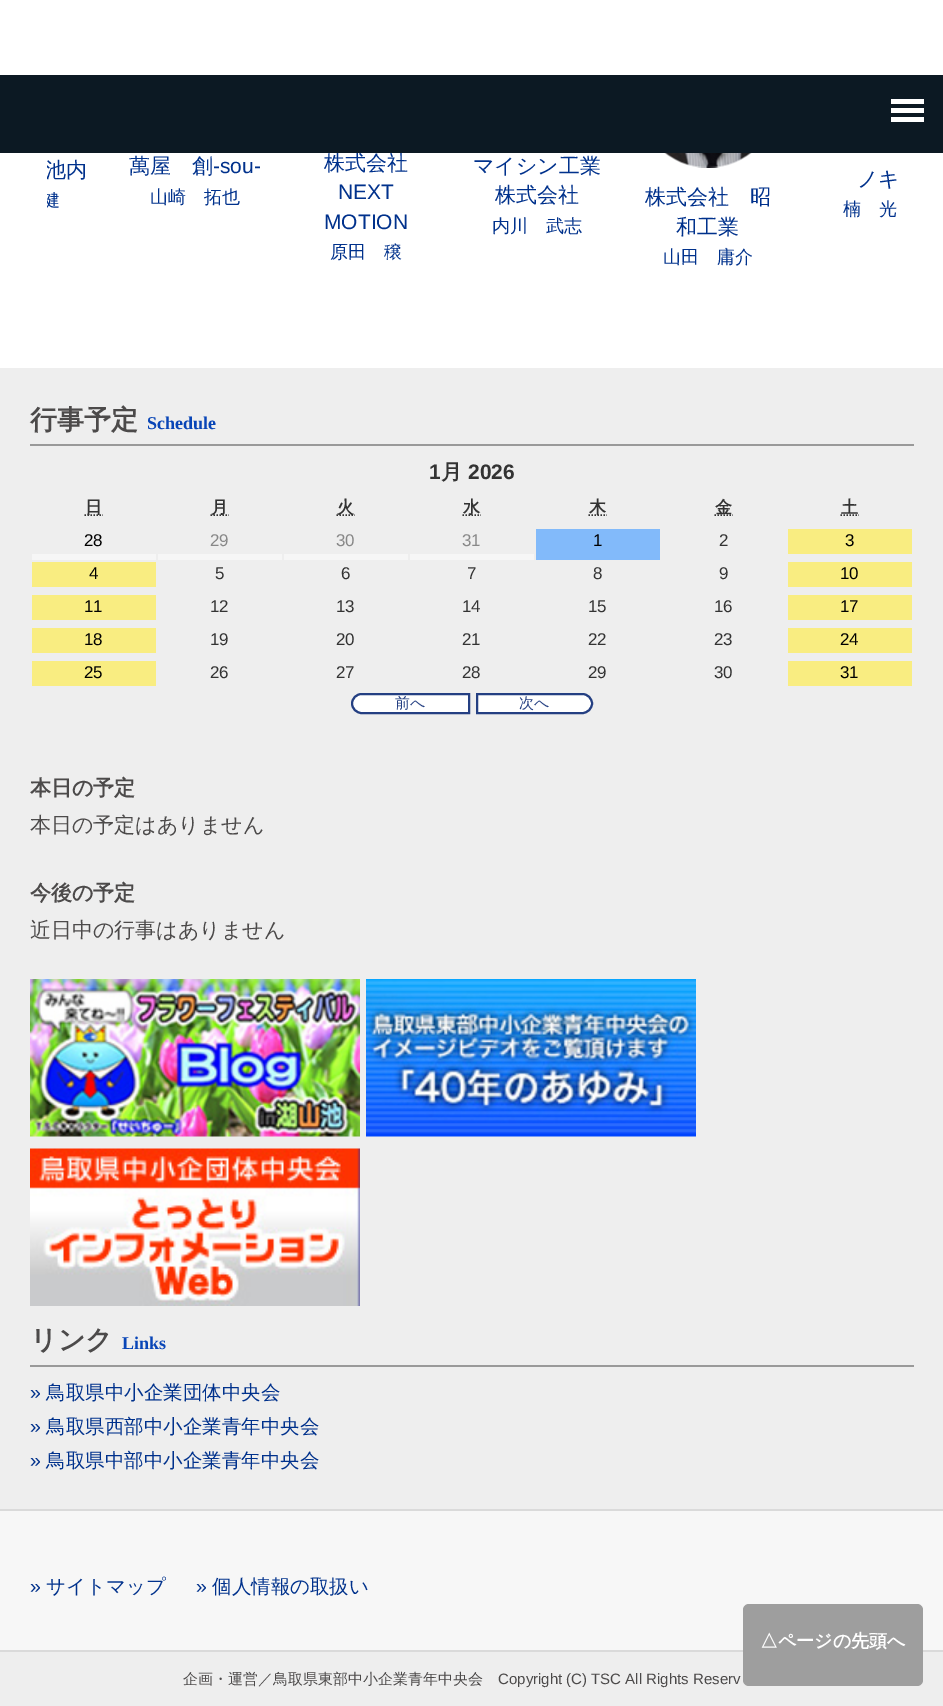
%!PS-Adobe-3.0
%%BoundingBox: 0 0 943 1706
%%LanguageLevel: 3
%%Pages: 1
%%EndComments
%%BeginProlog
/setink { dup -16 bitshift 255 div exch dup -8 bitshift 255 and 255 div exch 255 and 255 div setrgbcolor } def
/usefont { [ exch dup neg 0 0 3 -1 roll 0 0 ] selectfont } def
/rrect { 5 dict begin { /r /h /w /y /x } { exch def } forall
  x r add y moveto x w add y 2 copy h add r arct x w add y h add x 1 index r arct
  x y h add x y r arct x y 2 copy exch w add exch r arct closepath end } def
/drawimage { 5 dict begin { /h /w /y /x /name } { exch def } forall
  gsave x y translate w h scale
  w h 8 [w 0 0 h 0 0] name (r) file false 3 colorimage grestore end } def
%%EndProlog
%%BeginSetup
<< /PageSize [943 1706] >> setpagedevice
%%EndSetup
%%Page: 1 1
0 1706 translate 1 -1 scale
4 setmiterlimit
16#FFFFFF setink
0 0 943 1706 rectfill
/WenQuanYiZenHei-Medium 21 usefont
16#00318C setink
324 170 moveto (株式会社) show
[
    [0 75 943 78 16#0C1923]
    [891 99 33 5 16#FFFFFF]
    [891 108 33 5 16#FFFFFF]
    [891 117 33 5 16#FFFFFF]
] { aload pop setink rectfill } forall
gsave
47 0 850 323 rectclip
16#00318C setink
45 177 moveto (池内) show
/WenQuanYiZenHei-Medium 18 usefont
42 206 moveto (健) show
grestore
16#00318C setink
129 173 moveto (萬屋　創) show
/LiberationSans-Regular 21 usefont
213 173 moveto (-sou-) show
/WenQuanYiZenHei-Medium 18 usefont
150 203 moveto (山崎　拓也) show
/LiberationSans-Regular 21 usefont
338 199 moveto (NEXT) show
324 229 moveto (MOTION) show
/WenQuanYiZenHei-Medium 18 usefont
330 258 moveto (原田　穣) show
/WenQuanYiZenHei-Medium 21 usefont
473 173 moveto (マイシン工業) show
495 202 moveto (株式会社) show
/WenQuanYiZenHei-Medium 18 usefont
492 232 moveto (内川　武志) show
(img1.raw) 664 153 88 15 drawimage
/WenQuanYiZenHei-Medium 21 usefont
645 204 moveto (株式会社　昭) show
676 234 moveto (和工業) show
/WenQuanYiZenHei-Medium 18 usefont
663 263 moveto (山田　庸介) show
/WenQuanYiZenHei-Medium 21 usefont
857 186 moveto (ノキ) show
/WenQuanYiZenHei-Medium 18 usefont
843 215 moveto (楠　光) show
16#EEEEEE setink
0 368 943 1141 rectfill
16#999999 setink
30 444 884 2 rectfill
/WenQuanYiZenHei-Bold 27 usefont
16#4C4A4A setink
30 429 moveto (行事予定) show
/LiberationSerif-Bold 18 usefont
16#0845B7 setink
147 429 moveto (Schedule) show
/LiberationSans-Bold 21 usefont
16#333333 setink
429 479 moveto (1) show
/WenQuanYiZenHei-Bold 21 usefont
441 479 moveto (月) show
/LiberationSans-Bold 21 usefont
468 479 moveto (2026) show
1.5 setlinewidth
[1.5 1.5] 0 setdash
84.5 515 moveto 103 515 lineto stroke
/WenQuanYiZenHei-Bold 17 usefont
85 513 moveto 2 0 (日) ashow
210.5 515 moveto 229 515 lineto stroke
211 513 moveto 2 0 (月) ashow
336.5 515 moveto 355 515 lineto stroke
337 513 moveto 2 0 (火) ashow
462.5 515 moveto 481 515 lineto stroke
463 513 moveto 2 0 (水) ashow
588.5 515 moveto 607 515 lineto stroke
589 513 moveto 2 0 (木) ashow
714.5 515 moveto 733 515 lineto stroke
715 513 moveto 2 0 (金) ashow
841 513 moveto 2 0 (土) ashow
840.5 515 moveto 859 515 lineto stroke
16#F6F6F6 setink
32 554 124 6 rectfill
/LiberationSans-Regular 17 usefont
16#000000 setink
84 546 moveto (28) show
16#F6F6F6 setink
158 554 124 6 rectfill
16#888888 setink
210 546 moveto (29) show
16#F6F6F6 setink
284 554 124 6 rectfill
16#888888 setink
336 546 moveto (30) show
16#F6F6F6 setink
410 554 124 6 rectfill
16#888888 setink
462 546 moveto (31) show
16#82BAFA setink
536 529 124 31 rectfill
16#000000 setink
593 546 moveto (1) show
16#333333 setink
719 546 moveto (2) show
16#F9ED81 setink
788 529 124 25 rectfill
16#000000 setink
845 546 moveto (3) show
16#F9ED81 setink
32 562 124 25 rectfill
16#000000 setink
89 579 moveto (4) show
16#333333 setink
[
    [(5) 215 579]
    [(6) 341 579]
    [(7) 467 579]
    [(8) 593 579]
    [(9) 719 579]
] { aload pop moveto show } forall
16#F9ED81 setink
788 562 124 25 rectfill
16#000000 setink
840 579 moveto (10) show
16#F9ED81 setink
32 595 124 25 rectfill
16#000000 setink
84 612 moveto (11) show
16#333333 setink
[
    [(12) 210 612]
    [(13) 336 612]
    [(14) 462 612]
    [(15) 588 612]
    [(16) 714 612]
] { aload pop moveto show } forall
16#F9ED81 setink
788 595 124 25 rectfill
16#000000 setink
840 612 moveto (17) show
16#F9ED81 setink
32 628 124 25 rectfill
16#000000 setink
84 645 moveto (18) show
16#333333 setink
[
    [(19) 210 645]
    [(20) 336 645]
    [(21) 462 645]
    [(22) 588 645]
    [(23) 714 645]
] { aload pop moveto show } forall
16#F9ED81 setink
788 628 124 25 rectfill
16#000000 setink
840 645 moveto (24) show
16#F9ED81 setink
32 661 124 25 rectfill
16#000000 setink
84 678 moveto (25) show
16#333333 setink
[
    [(26) 210 678]
    [(27) 336 678]
    [(28) 462 678]
    [(29) 588 678]
    [(30) 714 678]
] { aload pop moveto show } forall
16#F9ED81 setink
788 661 124 25 rectfill
16#000000 setink
840 678 moveto (31) show
16#FFFFFF setink
361.5 694 moveto 469 694 lineto 469 713 lineto 361.5 713 lineto 356.5 713 352 708.5 352 703.5 curveto 352 698.5 356.5 694 361.5 694 curveto closepath gsave fill grestore
16#243F82 setink
2 setlinewidth
[] 0 setdash
stroke
/WenQuanYiZenHei-Medium 15 usefont
395 708 moveto (前へ) show
16#FFFFFF setink
477 694 moveto 582.5 694 lineto 587.5 694 592 698.5 592 703.5 curveto 592 708.5 587.5 713 582.5 713 curveto 477 713 lineto closepath gsave fill grestore
16#243F82 setink
stroke
519 708 moveto (次へ) show
/WenQuanYiZenHei-Bold 21 usefont
16#4C4A4A setink
30 795 moveto (本日の予定) show
/WenQuanYiZenHei-Medium 21 usefont
30 832 moveto (本日の予定はありません) show
/WenQuanYiZenHei-Bold 21 usefont
30 900 moveto (今後の予定) show
/WenQuanYiZenHei-Medium 21 usefont
30 937 moveto (近日中の行事はありません) show
(img2.raw) 30 979 330 158 drawimage
(img3.raw) 366 979 330 158 drawimage
(img4.raw) 30 1148 330 158 drawimage
16#999999 setink
30 1365 884 2 rectfill
/WenQuanYiZenHei-Bold 27 usefont
16#4C4A4A setink
30 1349 moveto (リンク) show
/LiberationSerif-Bold 18 usefont
16#0845B7 setink
122 1349 moveto (Links) show
/LiberationSans-Regular 19.5 usefont
16#00318C setink
30 1399 moveto (») show
/WenQuanYiZenHei-Medium 19.5 usefont
46 1399 moveto (鳥取県中小企業団体中央会) show
/LiberationSans-Regular 19.5 usefont
30 1433 moveto (») show
/WenQuanYiZenHei-Medium 19.5 usefont
46 1433 moveto (鳥取県西部中小企業青年中央会) show
/LiberationSans-Regular 19.5 usefont
30 1467 moveto (») show
/WenQuanYiZenHei-Medium 19.5 usefont
46 1467 moveto (鳥取県中部中小企業青年中央会) show
16#F7F7F7 setink
0 1511 943 139 rectfill
16#DADADA setink
0 1509 943 2 rectfill
/LiberationSans-Regular 19.5 usefont
16#00318C setink
30 1593 moveto (») show
/WenQuanYiZenHei-Medium 19.5 usefont
46 1593 moveto (サイトマップ) show
/LiberationSans-Regular 19.5 usefont
196 1593 moveto (») show
/WenQuanYiZenHei-Medium 19.5 usefont
212 1593 moveto (個人情報の取扱い) show
16#EEEEEE setink
0 1652 943 54 rectfill
16#DADADA setink
0 1650 943 2 rectfill
/WenQuanYiZenHei-Medium 15 usefont
16#4C4A4A setink
183 1684 moveto (企画・運営／鳥取県東部中小企業青年中央会) show
/LiberationSans-Regular 15 usefont
498 1684 moveto (Copyright \(C\) TSC All Rights Reserv) show
16#9E9E9E setink
743 1604 180 82 6 rrect fill
/WenQuanYiZenHei-Bold 18 usefont
16#FFFFFF setink
760 1647 moveto (△ページの先頭へ) show
showpage
%%EOF
